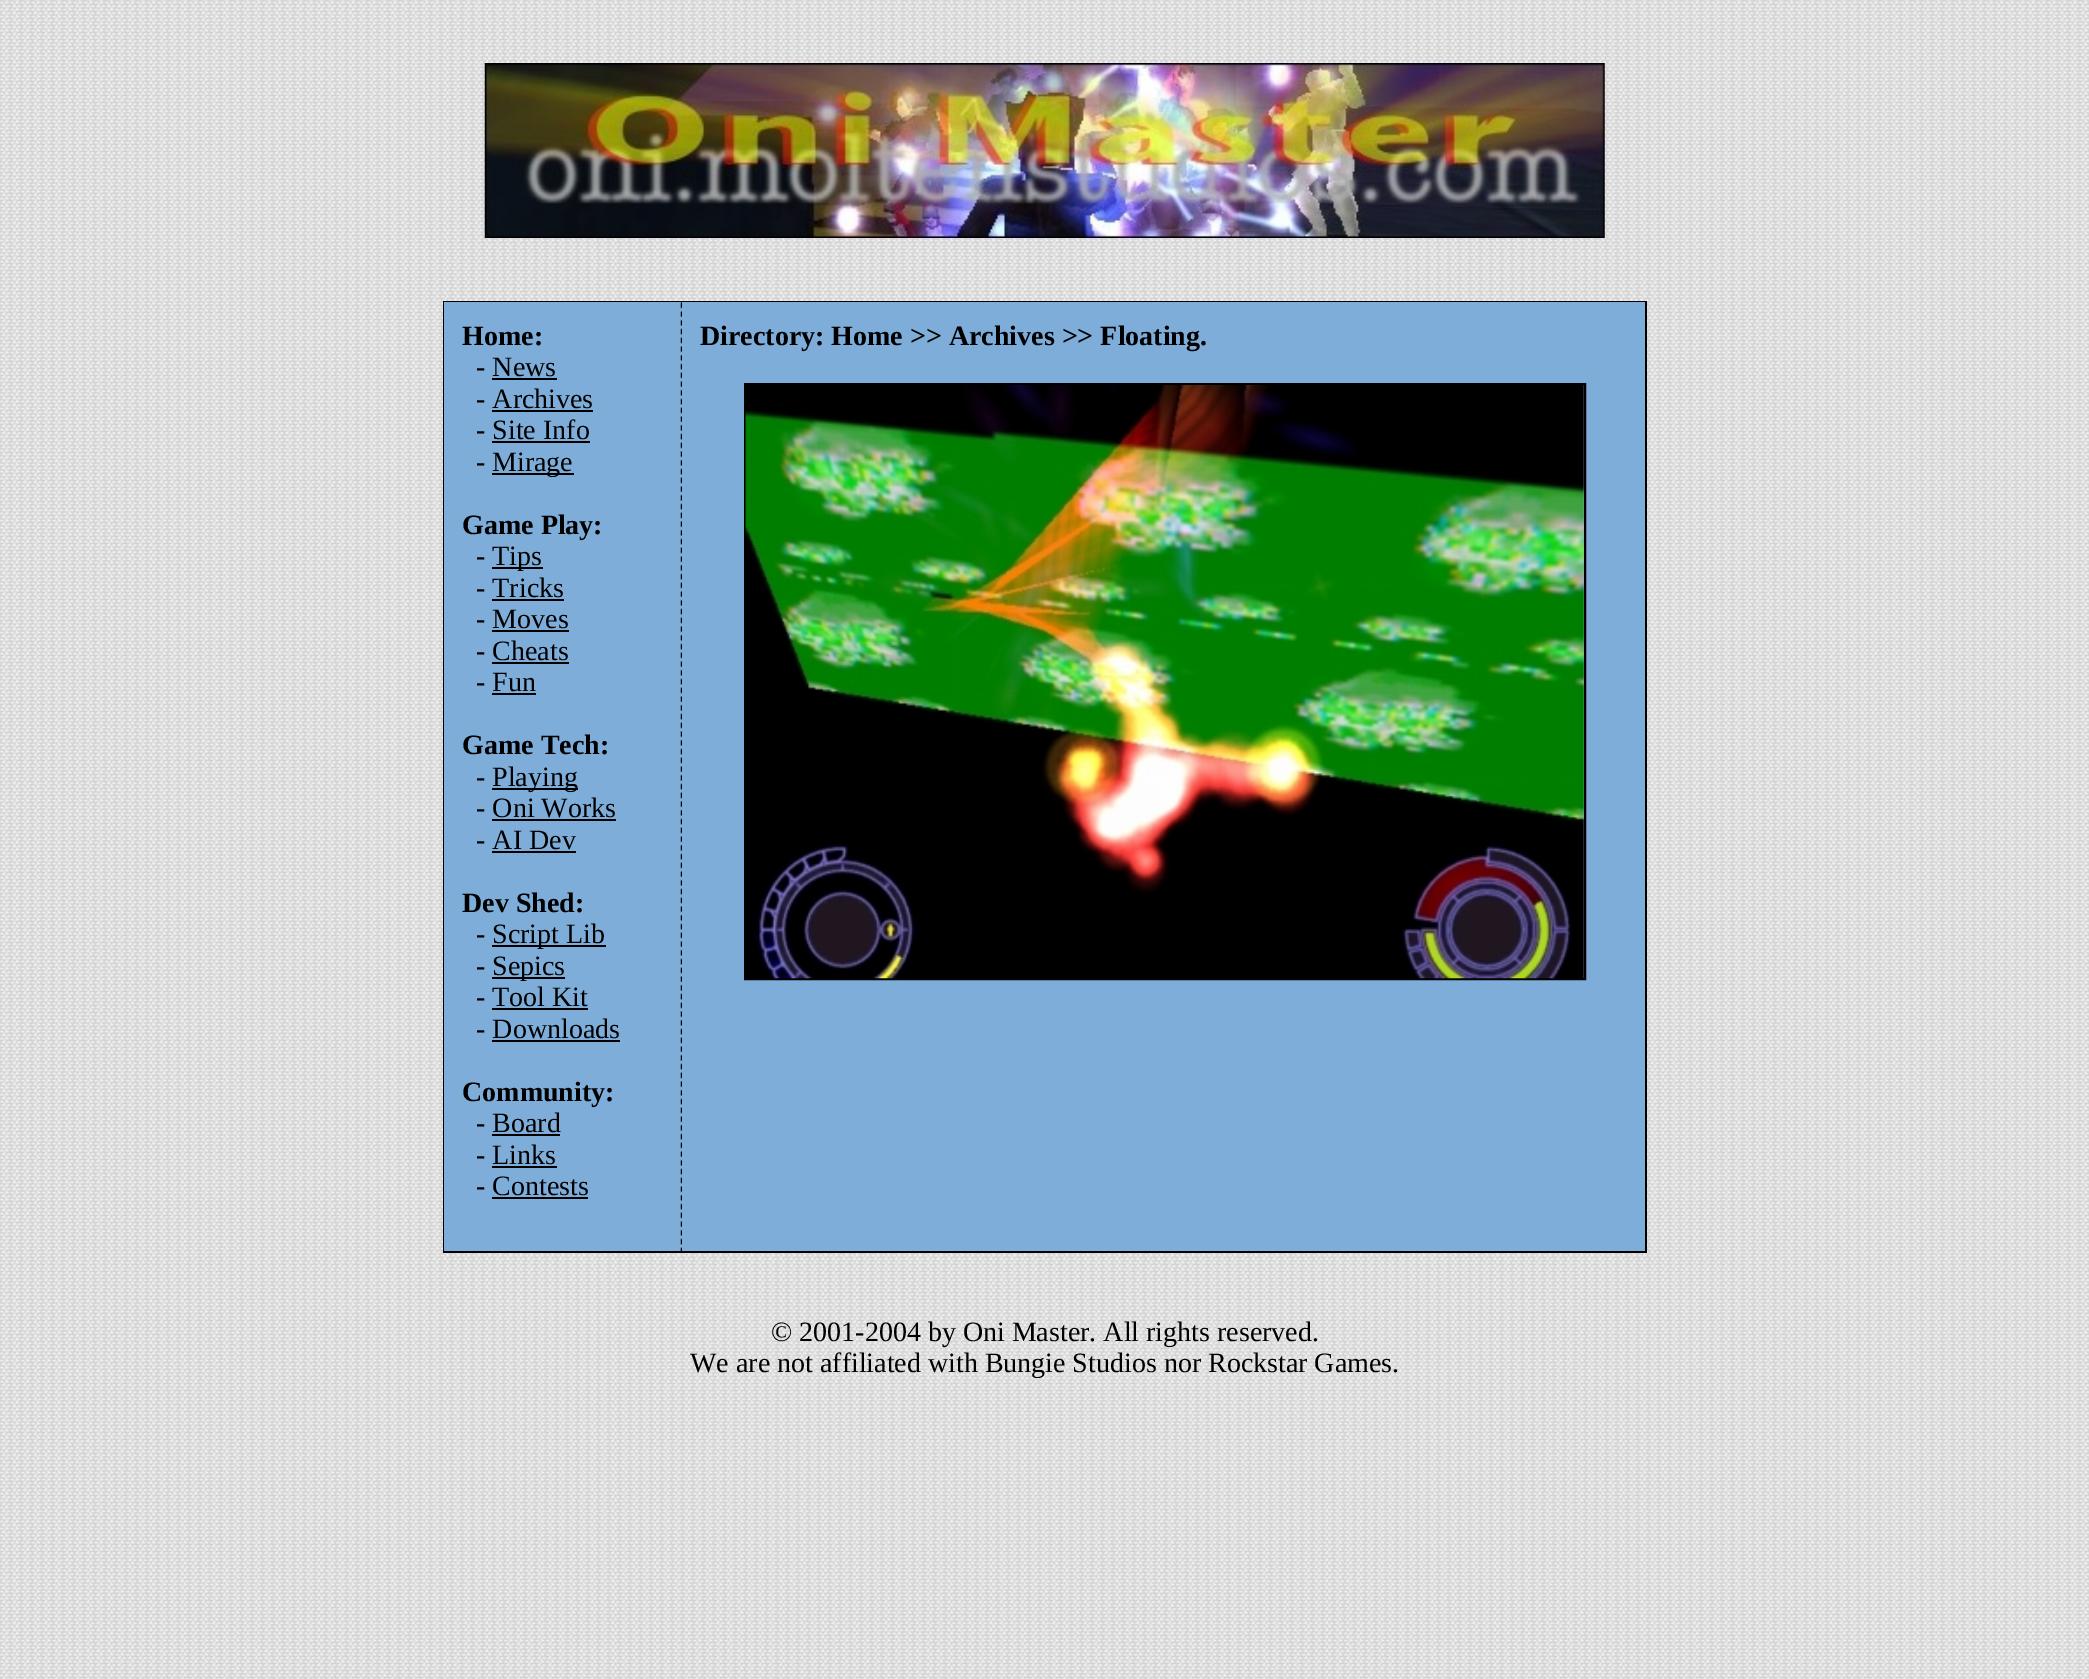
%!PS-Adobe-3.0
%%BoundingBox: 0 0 2089 1679
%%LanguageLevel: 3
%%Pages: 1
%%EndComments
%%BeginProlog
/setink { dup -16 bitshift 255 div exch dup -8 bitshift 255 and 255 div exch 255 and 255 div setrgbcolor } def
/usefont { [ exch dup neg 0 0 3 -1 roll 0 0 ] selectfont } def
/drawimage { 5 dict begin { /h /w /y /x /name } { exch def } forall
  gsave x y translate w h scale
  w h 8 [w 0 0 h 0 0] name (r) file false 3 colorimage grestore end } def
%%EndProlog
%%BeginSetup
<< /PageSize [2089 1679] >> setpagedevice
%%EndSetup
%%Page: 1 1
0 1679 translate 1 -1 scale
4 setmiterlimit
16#FFFFFF setink
0 0 2089 1679 rectfill
(img1.raw) 0 0 2089 1679 drawimage
(img2.raw) 484 63 1121 175 drawimage
[
    [443 301 1204 2 16#000000]
    [443 303 1 948 16#000000]
    [444 302 237 949 16#7EADD9]
] { aload pop setink rectfill } forall
/LiberationSerif-Bold 28 usefont
16#000000 setink
462 345 moveto (Home:) show
/LiberationSerif-Regular 28 usefont
476 376 moveto (- News) show
492 378 65 2 rectfill
476 408 moveto (- Archives) show
492 410 101 2 rectfill
476 439 moveto (- Site Info) show
492 441 98 2 rectfill
476 471 moveto (-) show
492 473 82 2 rectfill
492 471 moveto (Mirage) show
/LiberationSerif-Bold 28 usefont
462 534 moveto (Game Play:) show
/LiberationSerif-Regular 28 usefont
476 565 moveto (-) show
492 567 51 2 rectfill
492 565 moveto (Tips) show
476 597 moveto (- Tricks) show
492 599 72 2 rectfill
476 628 moveto (- Moves) show
492 630 77 2 rectfill
476 660 moveto (- Cheats) show
492 662 77 2 rectfill
476 691 moveto (- Fun) show
492 693 44 2 rectfill
/LiberationSerif-Bold 28 usefont
462 754 moveto (Game Tech:) show
/LiberationSerif-Regular 28 usefont
476 786 moveto (-) show
492 788 86 2 rectfill
492 786 moveto (Playing) show
476 817 moveto (- Oni Works) show
492 819 124 2 rectfill
476 849 moveto (- AI Dev) show
492 851 84 2 rectfill
/LiberationSerif-Bold 28 usefont
462 912 moveto (Dev Shed:) show
/LiberationSerif-Regular 28 usefont
476 943 moveto (-) show
492 945 114 2 rectfill
492 943 moveto (Script Lib) show
476 975 moveto (-) show
492 977 73 2 rectfill
492 975 moveto (Sepics) show
476 1006 moveto (- Tool Kit) show
492 1008 96 2 rectfill
476 1038 moveto (- Downloads) show
492 1040 128 2 rectfill
/LiberationSerif-Bold 28 usefont
462 1101 moveto (Community:) show
/LiberationSerif-Regular 28 usefont
476 1132 moveto (- Board) show
492 1134 68 2 rectfill
476 1164 moveto (- Links) show
492 1166 65 2 rectfill
476 1195 moveto (- Contests) show
492 1197 96 2 rectfill
(img3.raw) 680 302 2 949 drawimage
16#7EADD9 setink
682 302 963 949 rectfill
/LiberationSerif-Bold 28 usefont
16#000000 setink
700 345 moveto (Directory: Home >> Archives >> Floating.) show
2 setlinewidth
745 384 840 595 rectstroke
(img4.raw) 745 385 839 594 drawimage
1645 303 2 948 rectfill
443 1251 1204 2 rectfill
/LiberationSerif-Regular 28 usefont
771 1341 moveto (© 2001-2004 by Oni Master. All rights reserved.) show
690 1372 moveto (We are not affiliated with Bungie Studios nor Rockstar Games.) show
showpage
%%EOF
